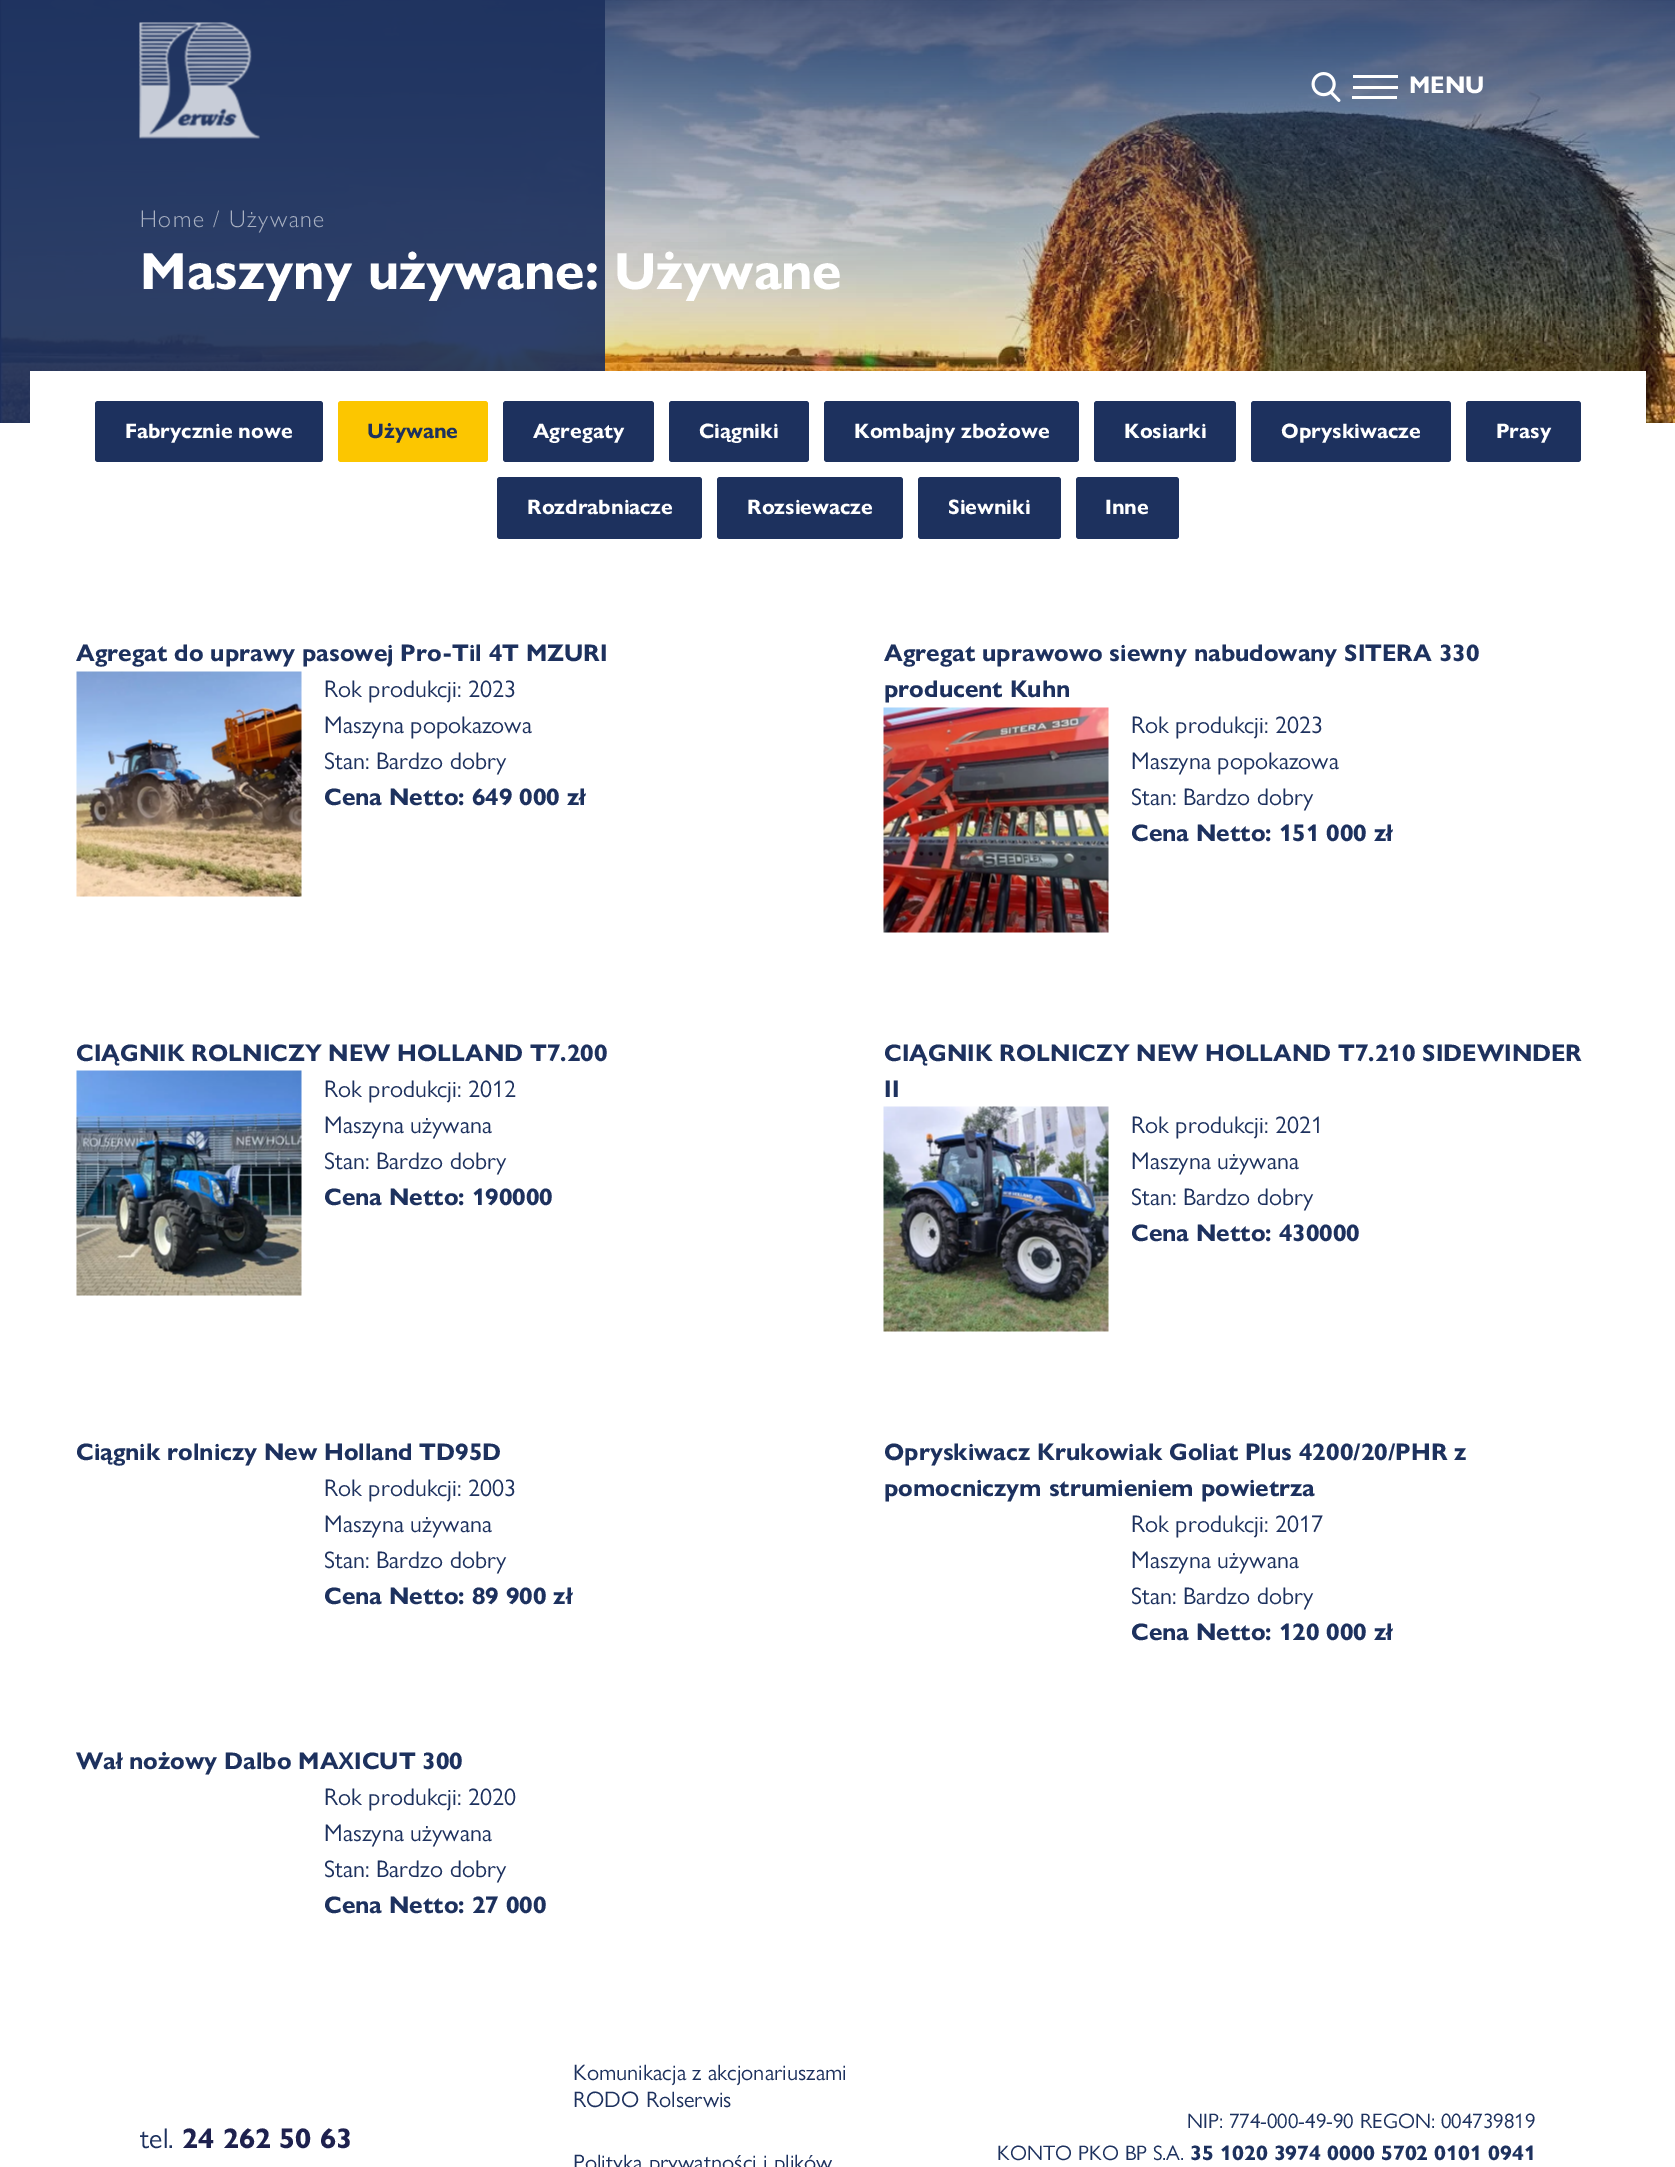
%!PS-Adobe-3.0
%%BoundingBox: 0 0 1675 2167
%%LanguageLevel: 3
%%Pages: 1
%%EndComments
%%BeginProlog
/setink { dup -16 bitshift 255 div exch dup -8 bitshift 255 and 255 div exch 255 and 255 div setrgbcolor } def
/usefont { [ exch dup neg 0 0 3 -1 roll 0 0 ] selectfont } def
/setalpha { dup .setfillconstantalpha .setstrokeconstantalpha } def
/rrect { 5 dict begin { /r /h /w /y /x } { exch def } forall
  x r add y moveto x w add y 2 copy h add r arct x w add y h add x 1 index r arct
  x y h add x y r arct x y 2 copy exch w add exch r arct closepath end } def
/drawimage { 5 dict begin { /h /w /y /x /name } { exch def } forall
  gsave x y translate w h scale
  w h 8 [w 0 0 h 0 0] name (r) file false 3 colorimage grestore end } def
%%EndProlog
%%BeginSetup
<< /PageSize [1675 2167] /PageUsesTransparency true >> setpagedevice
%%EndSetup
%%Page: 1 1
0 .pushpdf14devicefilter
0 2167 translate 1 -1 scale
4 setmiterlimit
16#FFFFFF setink
0 0 1675 2167 rectfill
(img3.raw) 0 0 1675 423 drawimage
0.92 setalpha
16#1D315E setink
0 0 605 423 rectfill
1 setalpha
(img1.raw) 139 22 121 117 drawimage
(img2.raw) 1311 72 30 30 drawimage
16#FFFFFF setink
1353 75 45 3 rectfill
/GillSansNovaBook-Bold 24 usefont
1409 93 moveto (MENU) show
1353 86 45 3 rectfill
1352 96 45 3 rectfill
/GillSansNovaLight-Light 24 usefont
16#A9B1C2 setink
140 227 moveto 1.5 0 (Home / Używane) ashow
/GillSansNovaBook-Bold 52.5 usefont
16#FFFFFF setink
140 289 moveto (Maszyny używane: Używane) show
30 371 1616 52 rectfill
16#1D315E setink
95 401 228 61 3 rrect fill
/GillSansNovaBook-Bold 21 usefont
16#FFFFFF setink
125 438 moveto (Fabrycznie nowe) show
16#FCC600 setink
338 401 150 61 3 rrect fill
16#1D315E setink
367 438 moveto (Używane) show
503 401 151 61 3 rrect fill
16#FFFFFF setink
533 438 moveto (Agregaty) show
16#1D315E setink
669 401 140 61 3 rrect fill
16#FFFFFF setink
699 438 moveto (Ciągniki) show
16#1D315E setink
824 401 255 61 3 rrect fill
16#FFFFFF setink
854 438 moveto (Kombajny zbożowe) show
16#1D315E setink
1094 401 142 61 3 rrect fill
16#FFFFFF setink
1124 438 moveto (Kosiarki) show
16#1D315E setink
1251 401 200 61 3 rrect fill
16#FFFFFF setink
1281 438 moveto (Opryskiwacze) show
16#1D315E setink
1466 401 115 61 3 rrect fill
16#FFFFFF setink
1496 438 moveto (Prasy) show
16#1D315E setink
497 477 205 62 3 rrect fill
16#FFFFFF setink
527 514 moveto (Rozdrabniacze) show
16#1D315E setink
717 477 186 62 3 rrect fill
16#FFFFFF setink
747 514 moveto (Rozsiewacze) show
16#1D315E setink
918 477 143 62 3 rrect fill
16#FFFFFF setink
948 514 moveto (Siewniki) show
16#1D315E setink
1076 477 103 62 3 rrect fill
16#FFFFFF setink
1105 514 moveto (Inne) show
/GillSansNovaBook-Bold 24 usefont
16#1D315E setink
76 661 moveto (Agregat do uprawy pasowej Pro-Til 4T MZURI) show
(img4.raw) 76 671 226 226 drawimage
/GillSansNovaBook-Regular 24 usefont
[
    [(Rok produkcji: 2023) 324 697]
    [(Maszyna popokazowa) 324 733]
    [(Stan: Bardzo dobry) 324 769]
] { aload pop moveto show } forall
/GillSansNovaBook-Bold 24 usefont
[
    [(Cena Netto: 649 000 zł) 324 805]
    [(Agregat uprawowo siewny nabudowany SITERA 330) 884 661]
    [(producent Kuhn) 884 697]
] { aload pop moveto show } forall
(img5.raw) 883 707 226 226 drawimage
/GillSansNovaBook-Regular 24 usefont
[
    [(Rok produkcji: 2023) 1131 733]
    [(Maszyna popokazowa) 1131 769]
    [(Stan: Bardzo dobry) 1131 805]
] { aload pop moveto show } forall
/GillSansNovaBook-Bold 24 usefont
1131 841 moveto (Cena Netto: 151 000 zł) show
76 1061 moveto (CIĄGNIK ROLNICZY NEW HOLLAND T7.200) show
(img6.raw) 76 1070 226 226 drawimage
/GillSansNovaBook-Regular 24 usefont
[
    [(Rok produkcji: 2012) 324 1097]
    [(Maszyna używana) 324 1133]
    [(Stan: Bardzo dobry) 324 1169]
] { aload pop moveto show } forall
/GillSansNovaBook-Bold 24 usefont
[
    [(Cena Netto: 190000) 324 1205]
    [(CIĄGNIK ROLNICZY NEW HOLLAND T7.210 SIDEWINDER) 884 1061]
    [(II) 884 1097]
] { aload pop moveto show } forall
(img7.raw) 883 1106 226 226 drawimage
/GillSansNovaBook-Regular 24 usefont
[
    [(Rok produkcji: 2021) 1131 1133]
    [(Maszyna używana) 1131 1169]
    [(Stan: Bardzo dobry) 1131 1205]
] { aload pop moveto show } forall
/GillSansNovaBook-Bold 24 usefont
1131 1241 moveto (Cena Netto: 430000) show
76 1460 moveto (Ciągnik rolniczy New Holland TD95D) show
/GillSansNovaBook-Regular 24 usefont
[
    [(Rok produkcji: 2003) 324 1496]
    [(Maszyna używana) 324 1532]
    [(Stan: Bardzo dobry) 324 1568]
] { aload pop moveto show } forall
/GillSansNovaBook-Bold 24 usefont
[
    [(Cena Netto: 89 900 zł) 324 1604]
    [(Opryskiwacz Krukowiak Goliat Plus 4200/20/PHR z) 884 1460]
    [(pomocniczym strumieniem powietrza) 884 1496]
] { aload pop moveto show } forall
/GillSansNovaBook-Regular 24 usefont
[
    [(Rok produkcji: 2017) 1131 1532]
    [(Maszyna używana) 1131 1568]
    [(Stan: Bardzo dobry) 1131 1604]
] { aload pop moveto show } forall
/GillSansNovaBook-Bold 24 usefont
1131 1640 moveto (Cena Netto: 120 000 zł) show
76 1769 moveto (Wał nożowy Dalbo MA) show
/LiberationSans-Bold 24 usefont
338 1769 moveto (X) show
/GillSansNovaBook-Bold 24 usefont
354 1769 moveto (ICUT 300) show
/GillSansNovaBook-Regular 24 usefont
[
    [(Rok produkcji: 2020) 324 1805]
    [(Maszyna używana) 324 1841]
    [(Stan: Bardzo dobry) 324 1877]
] { aload pop moveto show } forall
/GillSansNovaBook-Bold 24 usefont
324 1913 moveto (Cena Netto: 27 000) show
/GillSansNovaBook-Regular 28.5 usefont
140 2148 moveto (tel.) show
/GillSansNovaBook-Bold 28.5 usefont
16#1E214E setink
182 2148 moveto (24 262 50 63) show
/GillSansNovaBook-Regular 22.5 usefont
16#1D315E setink
[
    [(Komunikacja z akcjonariuszami) 573 2080]
    [(RODO Rolserwis) 573 2107]
    [(Polityka prywatności i plików) 573 2170]
] { aload pop moveto show } forall
/GillSansNovaBook-Regular 21 usefont
1187 2128 moveto (NIP: 774-000-49-90 REGON: 004739819) show
997 2160 moveto (KONTO PKO BP S.A.) show
/GillSansNovaBook-Bold 21 usefont
1190 2160 moveto (35 1020 3974 0000 5702 0101 0941) show
.poppdf14devicefilter showpage
%%EOF
